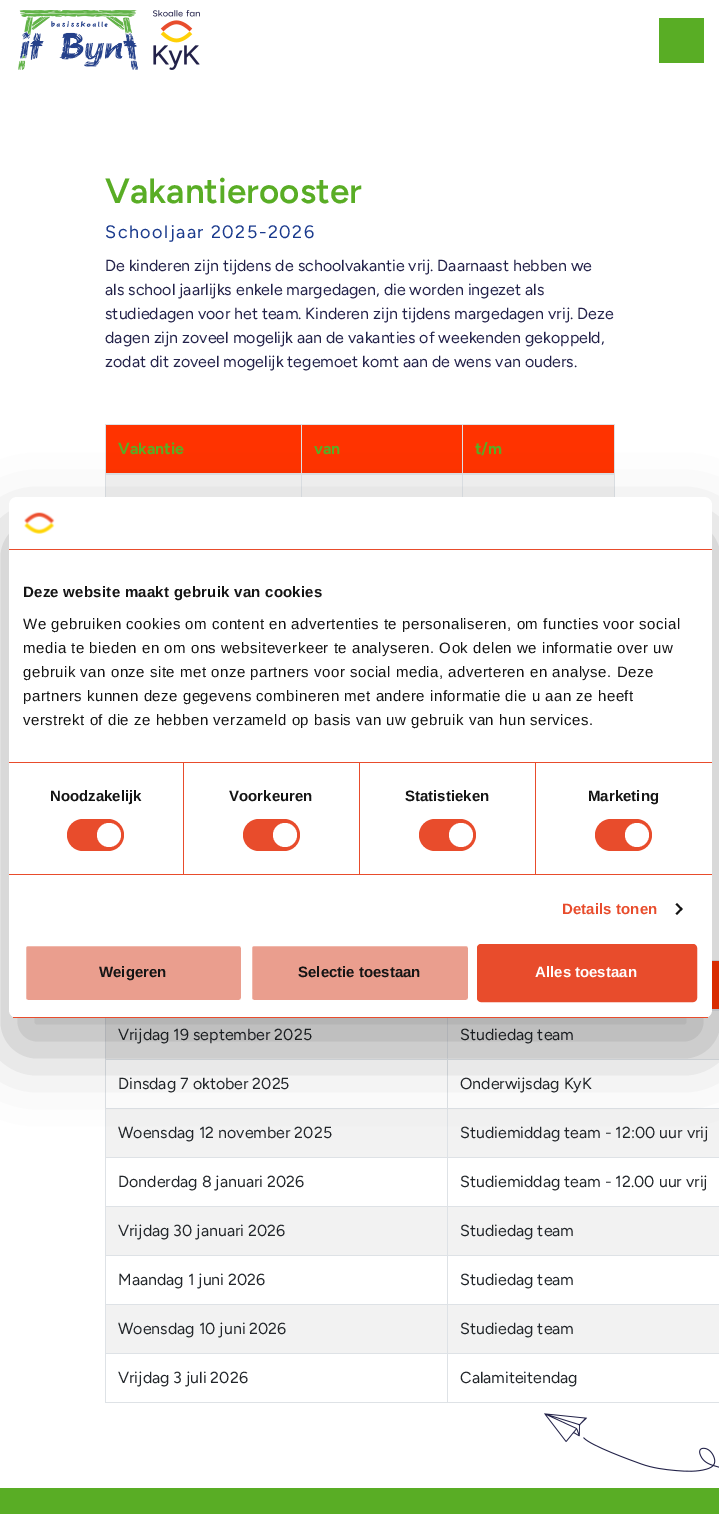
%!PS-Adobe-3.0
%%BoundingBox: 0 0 719 1514
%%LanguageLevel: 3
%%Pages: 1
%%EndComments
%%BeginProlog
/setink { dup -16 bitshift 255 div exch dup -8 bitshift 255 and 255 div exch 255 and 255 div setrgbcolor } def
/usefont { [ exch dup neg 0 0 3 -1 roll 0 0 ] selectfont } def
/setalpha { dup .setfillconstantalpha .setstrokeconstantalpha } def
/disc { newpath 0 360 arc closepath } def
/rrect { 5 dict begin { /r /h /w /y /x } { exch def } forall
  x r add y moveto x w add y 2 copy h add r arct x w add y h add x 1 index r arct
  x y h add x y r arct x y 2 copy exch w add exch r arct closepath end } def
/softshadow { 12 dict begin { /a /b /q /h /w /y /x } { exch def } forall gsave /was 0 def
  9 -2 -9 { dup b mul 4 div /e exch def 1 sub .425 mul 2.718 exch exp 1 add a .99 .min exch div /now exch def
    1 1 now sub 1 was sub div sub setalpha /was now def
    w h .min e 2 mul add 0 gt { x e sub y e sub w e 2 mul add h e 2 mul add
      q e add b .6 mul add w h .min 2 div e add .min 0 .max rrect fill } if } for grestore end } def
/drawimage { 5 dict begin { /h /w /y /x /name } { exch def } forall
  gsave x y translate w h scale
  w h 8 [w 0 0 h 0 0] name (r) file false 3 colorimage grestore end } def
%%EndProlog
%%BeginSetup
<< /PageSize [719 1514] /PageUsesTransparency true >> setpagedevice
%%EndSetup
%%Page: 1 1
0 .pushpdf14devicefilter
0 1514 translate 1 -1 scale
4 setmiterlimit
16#FFFFFF setink
0 0 719 1514 rectfill
(img1.raw) 18 10 120 60 drawimage
(img2.raw) 153 10 47 60 drawimage
16#59AD25 setink
659 18 45 45 rectfill
/Figtree-SemiBold 35 usefont
105 203 moveto (Vakantierooster) show
/Figtree-Regular 18 usefont
16#1A3A8D setink
105 238 moveto 1.5 0 (Schooljaar 2025-2026) ashow
/Figtree-Regular 16 usefont
16#222149 setink
[
    [(De kinderen zijn tijdens de schoolvakantie vrij. Daarnaast hebben we) 105 271]
    [(als school jaarlijks enkele margedagen, die worden ingezet als) 105 295]
    [(studiedagen voor het team. Kinderen zijn tijdens margedagen vrij. Deze) 105 319]
    [(dagen zijn zoveel mogelijk aan de vakanties of weekenden gekoppeld,) 105 343]
    [(zodat dit zoveel mogelijk tegemoet komt aan de wens van ouders.) 105 367]
] { aload pop moveto show } forall
[
    [106 425 508 48 16#FF3300]
    [462 424 153 1 16#DEE2E6]
    [106 475 508 22 16#F2F2F2]
    [462 473 1 24 16#DEE2E6]
    [462 424 1 50 16#DEE2E6]
    [301 424 162 1 16#DEE2E6]
    [301 473 1 24 16#DEE2E6]
    [301 424 1 50 16#DEE2E6]
    [105 424 197 1 16#DEE2E6]
    [105 473 1 24 16#DEE2E6]
    [105 424 1 50 16#DEE2E6]
] { aload pop setink rectfill } forall
/Figtree-Bold 16 usefont
16#59AD25 setink
118 454 moveto (Vakantie) show
314 454 moveto (van) show
[
    [614 473 1 24 16#DEE2E6]
    [614 424 1 50 16#DEE2E6]
    [105 473 510 2 16#DEE2E6]
] { aload pop setink rectfill } forall
16#59AD25 setink
475 454 moveto (t/m) show
[
    [712 960 7 1 16#DEE2E6]
    [105 1402 614 1 16#DEE2E6]
    [105 1018 1 385 16#DEE2E6]
    [712 961 7 48 16#FF3300]
    [711 1009 8 2 16#DEE2E6]
    [106 1011 613 48 16#F2F2F2]
] { aload pop setink rectfill } forall
/Figtree-Regular 16 usefont
16#212529 setink
118 1040 moveto (Vrijdag 19 september 2025) show
[
    [447 1059 272 1 16#DEE2E6]
    [447 1108 272 1 16#DEE2E6]
    [106 1109 613 48 16#F2F2F2]
    [447 1157 272 1 16#DEE2E6]
    [447 1206 272 1 16#DEE2E6]
    [106 1207 613 48 16#F2F2F2]
    [447 1255 272 1 16#DEE2E6]
    [447 1304 272 1 16#DEE2E6]
    [106 1305 613 48 16#F2F2F2]
    [447 1353 272 1 16#DEE2E6]
    [447 1353 1 50 16#DEE2E6]
    [105 1353 343 1 16#DEE2E6]
    [447 1304 1 50 16#DEE2E6]
    [105 1304 343 1 16#DEE2E6]
    [447 1255 1 50 16#DEE2E6]
    [105 1255 343 1 16#DEE2E6]
    [447 1206 1 50 16#DEE2E6]
    [105 1206 343 1 16#DEE2E6]
    [447 1157 1 50 16#DEE2E6]
    [105 1157 343 1 16#DEE2E6]
    [447 1108 1 50 16#DEE2E6]
    [105 1108 343 1 16#DEE2E6]
    [447 1059 1 50 16#DEE2E6]
    [105 1059 343 1 16#DEE2E6]
    [447 1018 1 42 16#DEE2E6]
] { aload pop setink rectfill } forall
16#212529 setink
[
    [(Studiedag team) 460 1040]
    [(Dinsdag 7 oktober 2025) 118 1089]
    [(Onderwijsdag KyK) 460 1089]
    [(Woensdag 12 november 2025) 118 1138]
    [(Studiemiddag team - 12:00 uur vrij) 460 1138]
    [(Donderdag 8 januari 2026) 118 1187]
    [(Studiemiddag team - 12.00 uur vrij) 460 1187]
    [(Vrijdag 30 januari 2026) 118 1236]
    [(Studiedag team) 460 1236]
    [(Maandag 1 juni 2026) 118 1285]
    [(Studiedag team) 460 1285]
    [(Woensdag 10 juni 2026) 118 1334]
    [(Studiedag team) 460 1334]
    [(Vrijdag 3 juli 2026) 118 1383]
    [(Calamiteitendag) 460 1383]
] { aload pop moveto show } forall
(img3.raw) 544 1413 175 59 drawimage
16#59AD25 setink
0 1488 719 26 rectfill
16#000000 setink
9 529 703 521 8 34 0.3 softshadow
16#FFFFFF setink
9 497 703 521 8 rrect fill
16#E84C2C setink
9 549 703 1 rectfill
(img4.raw) 24 512 31 22 drawimage
9 762 703 1 rectfill
/LiberationSans-Bold 15 usefont
16#141414 setink
23 597 moveto 0.25 0 (Deze website maakt gebruik van cookies) ashow
/LiberationSans-Regular 15 usefont
23 629 moveto 0.5 0 (We gebruiken cookies om content en advertenties te personaliseren, om functies voor social) ashow
23 653 moveto 0.5 0 (media te bieden en om ons websiteverkeer te analyseren. Ook delen we informatie over uw) ashow
23 677 moveto 0.5 0 (gebruik van onze site met onze partners voor social media, adverteren en analyse. Deze) ashow
23 701 moveto 0.5 0 (partners kunnen deze gegevens combineren met andere informatie die u aan ze heeft) ashow
23 725 moveto 0.5 0 (verstrekt of die ze hebben verzameld op basis van uw gebruik van hun services.) ashow
16#E84C2C setink
9 874 703 1 rectfill
183 763 1 111 rectfill
/LiberationSans-Bold 15 usefont
16#141414 setink
50 801 moveto (Noodzakelijk) show
16#E84C2C setink
67 819 57 32 16 rrect fill
16#FFFFFF setink
109 835 12 disc fill
16#E84C2C setink
359 763 1 111 rectfill
16#141414 setink
229 801 moveto (Voorkeuren) show
16#E84C2C setink
243 819 57 32 16 rrect fill
16#FFFFFF setink
285 835 12 disc fill
16#E84C2C setink
535 763 1 111 rectfill
16#141414 setink
405 801 moveto (Statistieken) show
16#E84C2C setink
419 819 57 32 16 rrect fill
16#FFFFFF setink
461 835 12 disc fill
16#141414 setink
588 801 moveto (Marketing) show
16#E84C2C setink
595 819 57 32 16 rrect fill
16#FFFFFF setink
637 835 12 disc fill
16#E84C2C setink
562 914 moveto 0.1 0 (Details tonen) ashow
16#141414 setink
677 903 moveto 682.5 909 lineto 681.5 910.5 lineto 675.5 904.5 lineto closepath fill
681.5 907.5 moveto 682.5 909 lineto 677 915 lineto 675.5 913.5 lineto closepath fill
gsave
9 497 703 521 8 rrect clip newpath
16#E84C2C setink
9 1017 703 1 rectfill
grestore
16#EA9E8E setink
25 945 217 56 3 rrect gsave fill grestore
16#FFFFFF setink
2 setlinewidth
stroke
16#141414 setink
99 977 moveto (Weigeren) show
16#EA9E8E setink
251 945 218 56 3 rrect gsave fill grestore
16#FFFFFF setink
stroke
16#141414 setink
298 977 moveto (Selectie toestaan) show
16#E84C2C setink
478 945 218 56 3 rrect gsave fill grestore
stroke
16#FFFFFF setink
535 977 moveto (Alles toestaan) show
.poppdf14devicefilter showpage
%%EOF
